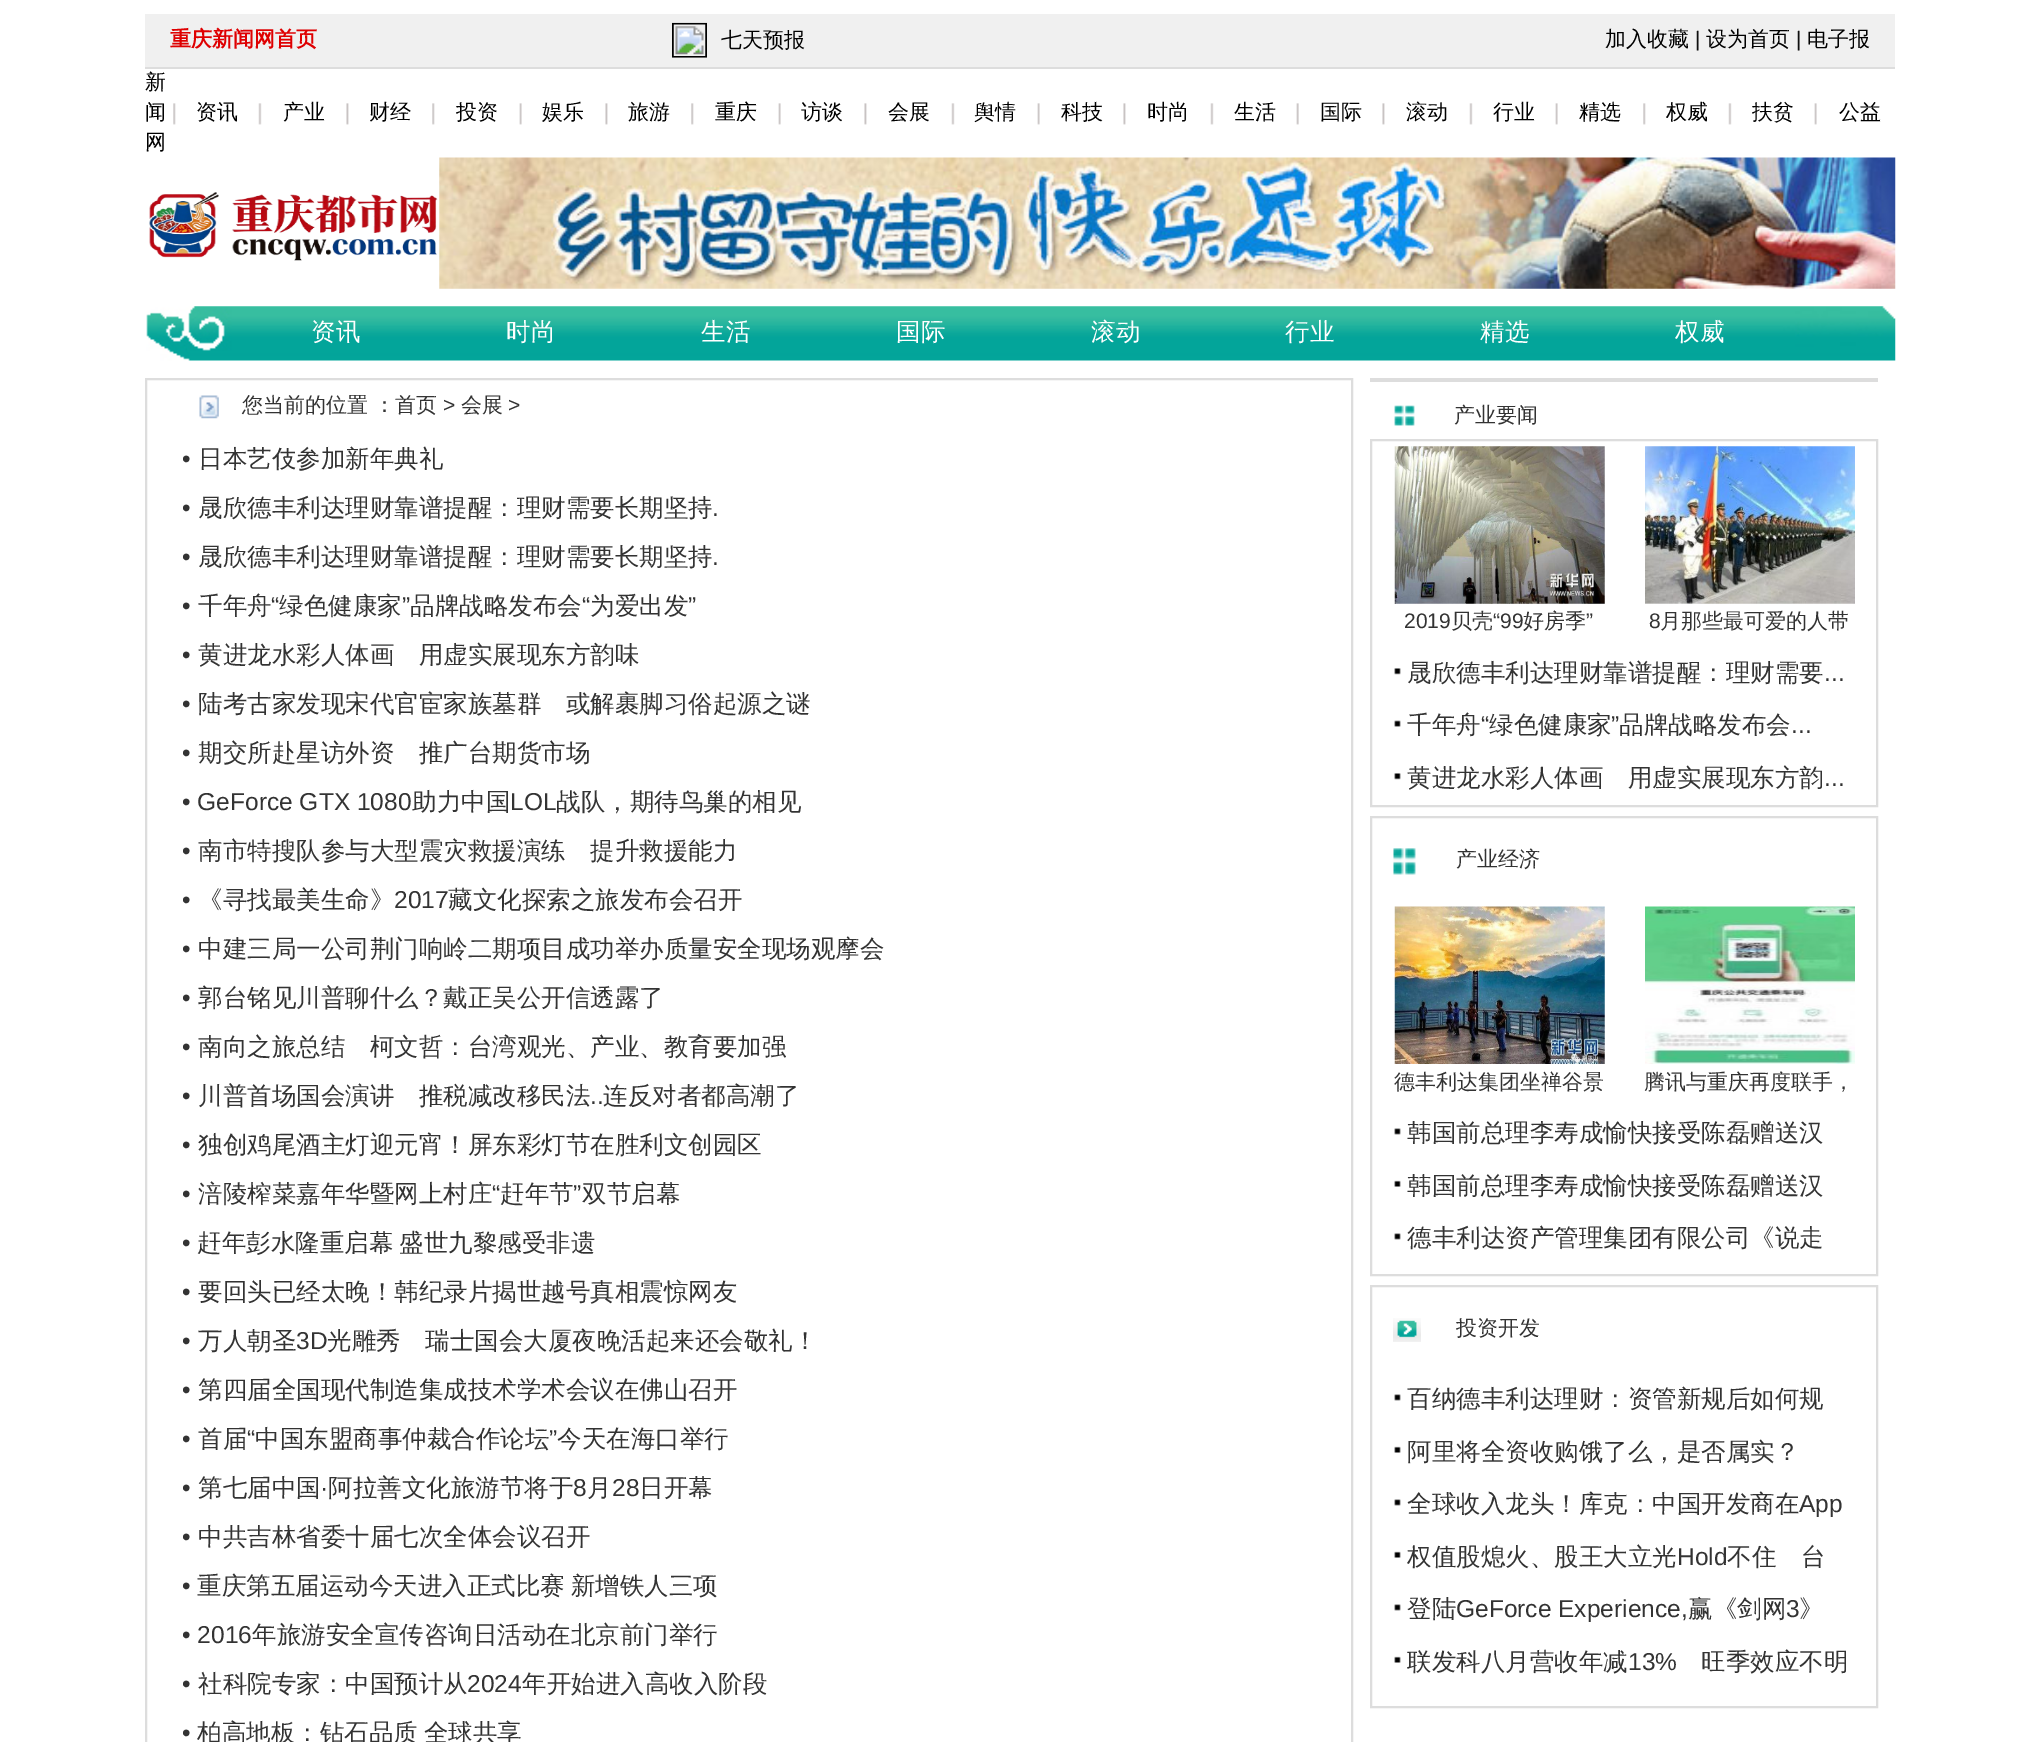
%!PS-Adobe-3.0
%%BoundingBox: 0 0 2040 1742
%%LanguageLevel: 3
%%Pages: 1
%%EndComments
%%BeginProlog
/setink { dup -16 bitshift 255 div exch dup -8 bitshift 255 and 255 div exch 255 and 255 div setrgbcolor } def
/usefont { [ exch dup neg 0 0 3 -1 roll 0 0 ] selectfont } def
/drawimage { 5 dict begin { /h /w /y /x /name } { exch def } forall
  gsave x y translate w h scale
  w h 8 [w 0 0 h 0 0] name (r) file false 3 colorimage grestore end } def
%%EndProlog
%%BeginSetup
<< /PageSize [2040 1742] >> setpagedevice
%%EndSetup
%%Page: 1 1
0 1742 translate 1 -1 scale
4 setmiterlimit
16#FFFFFF setink
0 0 2040 1742 rectfill
16#F0F0F0 setink
145 14 1750 53 rectfill
16#DDDDDD setink
145 67 1750 2 rectfill
/WenQuanYiZenHei-Bold 21 usefont
16#DF0001 setink
170 46 moveto (重庆新闻网首页) show
(img1.raw) 672 22 133 36 drawimage
/WenQuanYiZenHei-Medium 21 usefont
16#000000 setink
1605 46 moveto (加入收藏) show
/LiberationSans-Regular 21 usefont
16#0F0F0F setink
1695 46 moveto (|) show
/WenQuanYiZenHei-Medium 21 usefont
16#000000 setink
1706 46 moveto (设为首页) show
/LiberationSans-Regular 21 usefont
16#0F0F0F setink
1796 46 moveto (|) show
/WenQuanYiZenHei-Medium 21 usefont
16#000000 setink
[
    [(电子报) 1807 46]
    [(新) 145 89]
    [(闻) 145 119]
    [(网) 145 149]
] { aload pop moveto show } forall
(img2.raw) 173 103 3 22 drawimage
196 119 moveto (资讯) show
(img3.raw) 258 103 4 22 drawimage
283 119 moveto (产业) show
(img4.raw) 346 103 3 22 drawimage
369 119 moveto (财经) show
(img2.raw) 432 103 3 22 drawimage
456 119 moveto (投资) show
(img5.raw) 519 103 3 22 drawimage
542 119 moveto (娱乐) show
(img4.raw) 605 103 3 22 drawimage
628 119 moveto (旅游) show
(img2.raw) 691 103 3 22 drawimage
715 119 moveto (重庆) show
(img5.raw) 778 103 3 22 drawimage
801 119 moveto (访谈) show
(img4.raw) 864 103 3 22 drawimage
888 119 moveto (会展) show
(img3.raw) 951 103 4 22 drawimage
974 119 moveto (舆情) show
(img5.raw) 1037 103 3 22 drawimage
1061 119 moveto (科技) show
(img4.raw) 1123 103 3 22 drawimage
1147 119 moveto (时尚) show
(img3.raw) 1210 103 4 22 drawimage
1234 119 moveto (生活) show
(img6.raw) 1296 103 3 22 drawimage
1320 119 moveto (国际) show
(img4.raw) 1382 103 3 22 drawimage
1406 119 moveto (滚动) show
(img3.raw) 1469 103 4 22 drawimage
1493 119 moveto (行业) show
(img5.raw) 1555 103 3 22 drawimage
1579 119 moveto (精选) show
(img2.raw) 1643 103 3 22 drawimage
1666 119 moveto (权威) show
(img3.raw) 1728 103 4 22 drawimage
1752 119 moveto (扶贫) show
(img5.raw) 1814 103 3 22 drawimage
1839 119 moveto (公益) show
(img7.raw) 149 192 289 69 drawimage
(img8.raw) 439 157 1457 132 drawimage
(img9.raw) 146 306 1750 55 drawimage
/WenQuanYiZenHei-Medium 24.5 usefont
16#FFFFFF setink
[
    [(资讯) 311 340]
    [(时尚) 506 340]
    [(生活) 701 340]
    [(国际) 896 340]
    [(滚动) 1091 340]
    [(行业) 1285 340]
    [(精选) 1480 340]
    [(权威) 1675 340]
] { aload pop moveto show } forall
16#DDDDDD setink
2 setlinewidth
146 379 1206 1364 rectstroke
(img10.raw) 199 395 20 24 drawimage
/WenQuanYiZenHei-Medium 21 usefont
16#333333 setink
242 412 moveto (您当前的位置 ：) show
395 412 moveto (首页) show
/LiberationSans-Regular 21 usefont
443 412 moveto (>) show
/WenQuanYiZenHei-Medium 21 usefont
461 412 moveto (会展) show
/LiberationSans-Regular 21 usefont
508 412 moveto (>) show
/LiberationSans-Regular 24.5 usefont
182 467 moveto (•) show
/WenQuanYiZenHei-Medium 24.5 usefont
198 467 moveto (日本艺伎参加新年典礼) show
/LiberationSans-Regular 24.5 usefont
182 516 moveto (•) show
/WenQuanYiZenHei-Medium 24.5 usefont
198 516 moveto (晟欣德丰利达理财靠谱提醒：理财需要长期坚持) show
/LiberationSans-Regular 24.5 usefont
712 516 moveto (.) show
182 565 moveto (•) show
/WenQuanYiZenHei-Medium 24.5 usefont
198 565 moveto (晟欣德丰利达理财靠谱提醒：理财需要长期坚持) show
/LiberationSans-Regular 24.5 usefont
712 565 moveto (.) show
/WenQuanYiZenHei-Medium 24.5 usefont
198 614 moveto (千年舟) show
/LiberationSans-Regular 24.5 usefont
271 614 moveto (“) show
/WenQuanYiZenHei-Medium 24.5 usefont
279 614 moveto (绿色健康家) show
/LiberationSans-Regular 24.5 usefont
402 614 moveto (”) show
/WenQuanYiZenHei-Medium 24.5 usefont
410 614 moveto (品牌战略发布会) show
/LiberationSans-Regular 24.5 usefont
582 614 moveto (“) show
/WenQuanYiZenHei-Medium 24.5 usefont
590 614 moveto (为爱出发) show
/LiberationSans-Regular 24.5 usefont
[
    [(”) 688 614]
    [(•) 182 614]
    [(•) 182 663]
] { aload pop moveto show } forall
/WenQuanYiZenHei-Medium 24.5 usefont
198 663 moveto (黄进龙水彩人体画　用虚实展现东方韵味) show
/LiberationSans-Regular 24.5 usefont
182 712 moveto (•) show
/WenQuanYiZenHei-Medium 24.5 usefont
198 712 moveto (陆考古家发现宋代官宦家族墓群　或解裹脚习俗起源之谜) show
/LiberationSans-Regular 24.5 usefont
182 761 moveto (•) show
/WenQuanYiZenHei-Medium 24.5 usefont
198 761 moveto (期交所赴星访外资　推广台期货市场) show
/LiberationSans-Regular 24.5 usefont
182 810 moveto (• GeForce GTX 1080) show
/WenQuanYiZenHei-Medium 24.5 usefont
412 810 moveto (助力中国) show
/LiberationSans-Regular 24.5 usefont
510 810 moveto (LOL) show
/WenQuanYiZenHei-Medium 24.5 usefont
556 810 moveto (战队，期待鸟巢的相见) show
/LiberationSans-Regular 24.5 usefont
182 859 moveto (•) show
/WenQuanYiZenHei-Medium 24.5 usefont
198 859 moveto (南市特搜队参与大型震灾救援演练　提升救援能力) show
/LiberationSans-Regular 24.5 usefont
182 908 moveto (•) show
/WenQuanYiZenHei-Medium 24.5 usefont
198 908 moveto (《寻找最美生命》) show
/LiberationSans-Regular 24.5 usefont
394 908 moveto (2017) show
/WenQuanYiZenHei-Medium 24.5 usefont
448 908 moveto (藏文化探索之旅发布会召开) show
/LiberationSans-Regular 24.5 usefont
182 957 moveto (•) show
/WenQuanYiZenHei-Medium 24.5 usefont
198 957 moveto (中建三局一公司荆门响岭二期项目成功举办质量安全现场观摩会) show
/LiberationSans-Regular 24.5 usefont
182 1006 moveto (•) show
/WenQuanYiZenHei-Medium 24.5 usefont
198 1006 moveto (郭台铭见川普聊什么？戴正吴公开信透露了) show
/LiberationSans-Regular 24.5 usefont
182 1055 moveto (•) show
/WenQuanYiZenHei-Medium 24.5 usefont
198 1055 moveto (南向之旅总结　柯文哲：台湾观光、产业、教育要加强) show
/LiberationSans-Regular 24.5 usefont
182 1104 moveto (•) show
/WenQuanYiZenHei-Medium 24.5 usefont
198 1104 moveto (川普首场国会演讲　推税减改移民法) show
603 1104 moveto (连反对者都高潮了) show
/LiberationSans-Regular 24.5 usefont
590 1104 moveto (..) show
182 1153 moveto (•) show
/WenQuanYiZenHei-Medium 24.5 usefont
198 1153 moveto (独创鸡尾酒主灯迎元宵！屏东彩灯节在胜利文创园区) show
198 1202 moveto (涪陵榨菜嘉年华暨网上村庄) show
/LiberationSans-Regular 24.5 usefont
492 1202 moveto (“) show
/WenQuanYiZenHei-Medium 24.5 usefont
500 1202 moveto (赶年节) show
/LiberationSans-Regular 24.5 usefont
573 1202 moveto (”) show
/WenQuanYiZenHei-Medium 24.5 usefont
582 1202 moveto (双节启幕) show
/LiberationSans-Regular 24.5 usefont
182 1202 moveto (•) show
182 1251 moveto (•) show
/WenQuanYiZenHei-Medium 24.5 usefont
197 1251 moveto -1 0 32 (赶年彭水隆重启幕 盛世九黎感受非遗) widthshow
/LiberationSans-Regular 24.5 usefont
182 1300 moveto (•) show
/WenQuanYiZenHei-Medium 24.5 usefont
198 1300 moveto (要回头已经太晚！韩纪录片揭世越号真相震惊网友) show
/LiberationSans-Regular 24.5 usefont
182 1349 moveto (•) show
/WenQuanYiZenHei-Medium 24.5 usefont
198 1349 moveto (万人朝圣) show
/LiberationSans-Regular 24.5 usefont
296 1349 moveto (3D) show
/WenQuanYiZenHei-Medium 24.5 usefont
327 1349 moveto (光雕秀　瑞士国会大厦夜晚活起来还会敬礼！) show
/LiberationSans-Regular 24.5 usefont
182 1398 moveto (•) show
/WenQuanYiZenHei-Medium 24.5 usefont
198 1398 moveto (第四届全国现代制造集成技术学术会议在佛山召开) show
198 1447 moveto (首届) show
/LiberationSans-Regular 24.5 usefont
247 1447 moveto (“) show
/WenQuanYiZenHei-Medium 24.5 usefont
255 1447 moveto (中国东盟商事仲裁合作论坛) show
/LiberationSans-Regular 24.5 usefont
549 1447 moveto (”) show
/WenQuanYiZenHei-Medium 24.5 usefont
557 1447 moveto (今天在海口举行) show
/LiberationSans-Regular 24.5 usefont
182 1447 moveto (•) show
182 1496 moveto (•) show
/WenQuanYiZenHei-Medium 24.5 usefont
198 1496 moveto (第七届中国) show
/LiberationSans-Regular 24.5 usefont
320 1496 moveto (·) show
/WenQuanYiZenHei-Medium 24.5 usefont
328 1496 moveto (阿拉善文化旅游节将于) show
/LiberationSans-Regular 24.5 usefont
573 1496 moveto (8) show
/WenQuanYiZenHei-Medium 24.5 usefont
587 1496 moveto (月) show
/LiberationSans-Regular 24.5 usefont
612 1496 moveto (28) show
/WenQuanYiZenHei-Medium 24.5 usefont
639 1496 moveto (日开幕) show
/LiberationSans-Regular 24.5 usefont
182 1545 moveto (•) show
/WenQuanYiZenHei-Medium 24.5 usefont
198 1545 moveto (中共吉林省委十届七次全体会议召开) show
/LiberationSans-Regular 24.5 usefont
182 1594 moveto (•) show
/WenQuanYiZenHei-Medium 24.5 usefont
197 1594 moveto -1 0 32 (重庆第五届运动今天进入正式比赛 新增铁人三项) widthshow
/LiberationSans-Regular 24.5 usefont
182 1643 moveto (• 2016) show
/WenQuanYiZenHei-Medium 24.5 usefont
252 1643 moveto (年旅游安全宣传咨询日活动在北京前门举行) show
/LiberationSans-Regular 24.5 usefont
182 1692 moveto (•) show
/WenQuanYiZenHei-Medium 24.5 usefont
198 1692 moveto (社科院专家：中国预计从) show
/LiberationSans-Regular 24.5 usefont
467 1692 moveto (2024) show
/WenQuanYiZenHei-Medium 24.5 usefont
522 1692 moveto (年开始进入高收入阶段) show
/LiberationSans-Regular 24.5 usefont
182 1741 moveto (•) show
/WenQuanYiZenHei-Medium 24.5 usefont
197 1741 moveto -1 0 32 (柏高地板：钻石品质 全球共享) widthshow
16#DDDDDD setink
1370 378 508 4 rectfill
(img11.raw) 1394 405 21 21 drawimage
/WenQuanYiZenHei-Medium 21 usefont
16#333333 setink
1454 422 moveto (产业要闻) show
16#DDDDDD setink
1371 440 506 366 rectstroke
(img12.raw) 1394 446 211 158 drawimage
/LiberationSans-Regular 21 usefont
16#333333 setink
1404 628 moveto (2019) show
/WenQuanYiZenHei-Medium 21 usefont
1451 628 moveto (贝壳) show
/LiberationSans-Regular 21 usefont
1493 628 moveto (“99) show
/WenQuanYiZenHei-Medium 21 usefont
1523 628 moveto (好房季) show
/LiberationSans-Regular 21 usefont
1586 628 moveto (”) show
(img13.raw) 1645 446 210 158 drawimage
1649 628 moveto (8) show
/WenQuanYiZenHei-Medium 21 usefont
1660 628 moveto (月那些最可爱的人带) show
(img14.raw) 1394 668 7 7 drawimage
/WenQuanYiZenHei-Medium 24.5 usefont
1407 681 moveto (晟欣德丰利达理财靠谱提醒：理财需要) show
/LiberationSans-Regular 24.5 usefont
1824 681 moveto (...) show
(img15.raw) 1394 720 7 7 drawimage
/WenQuanYiZenHei-Medium 24.5 usefont
1407 733 moveto (千年舟) show
/LiberationSans-Regular 24.5 usefont
1481 733 moveto (“) show
/WenQuanYiZenHei-Medium 24.5 usefont
1489 733 moveto (绿色健康家) show
/LiberationSans-Regular 24.5 usefont
1611 733 moveto (”) show
/WenQuanYiZenHei-Medium 24.5 usefont
1619 733 moveto (品牌战略发布会) show
/LiberationSans-Regular 24.5 usefont
1791 733 moveto (...) show
(img14.raw) 1394 773 7 7 drawimage
/WenQuanYiZenHei-Medium 24.5 usefont
1407 786 moveto (黄进龙水彩人体画　用虚实展现东方韵) show
/LiberationSans-Regular 24.5 usefont
1824 786 moveto (...) show
16#DDDDDD setink
1371 817 506 458 rectstroke
(img16.raw) 1393 848 23 27 drawimage
/WenQuanYiZenHei-Medium 21 usefont
16#333333 setink
1456 866 moveto (产业经济) show
(img17.raw) 1394 906 211 158 drawimage
1394 1089 moveto (德丰利达集团坐禅谷景) show
(img18.raw) 1645 906 210 158 drawimage
1644 1089 moveto (腾讯与重庆再度联手，) show
(img19.raw) 1394 1128 7 7 drawimage
/WenQuanYiZenHei-Medium 24.5 usefont
1407 1141 moveto (韩国前总理李寿成愉快接受陈磊赠送汉) show
(img20.raw) 1394 1180 7 7 drawimage
1407 1194 moveto (韩国前总理李寿成愉快接受陈磊赠送汉) show
(img19.raw) 1394 1233 7 7 drawimage
1407 1246 moveto (德丰利达资产管理集团有限公司《说走) show
16#DDDDDD setink
1371 1286 506 421 rectstroke
(img21.raw) 1393 1318 28 24 drawimage
/WenQuanYiZenHei-Medium 21 usefont
16#333333 setink
1456 1335 moveto (投资开发) show
(img19.raw) 1394 1394 7 7 drawimage
/WenQuanYiZenHei-Medium 24.5 usefont
1407 1407 moveto (百纳德丰利达理财：资管新规后如何规) show
(img20.raw) 1394 1446 7 7 drawimage
1407 1460 moveto (阿里将全资收购饿了么，是否属实？) show
(img19.raw) 1394 1499 7 7 drawimage
1407 1512 moveto (全球收入龙头！库克：中国开发商在) show
/LiberationSans-Regular 24.5 usefont
1799 1512 moveto (App) show
(img20.raw) 1394 1551 7 7 drawimage
/WenQuanYiZenHei-Medium 24.5 usefont
1407 1565 moveto (权值股熄火、股王大立光) show
/LiberationSans-Regular 24.5 usefont
1677 1565 moveto (Hold) show
/WenQuanYiZenHei-Medium 24.5 usefont
1727 1565 moveto (不住　台) show
(img19.raw) 1394 1604 7 7 drawimage
1407 1617 moveto (登陆) show
/LiberationSans-Regular 24.5 usefont
1456 1617 moveto (GeForce Experience,) show
/WenQuanYiZenHei-Medium 24.5 usefont
1688 1617 moveto (赢《剑网) show
/LiberationSans-Regular 24.5 usefont
1786 1617 moveto (3) show
/WenQuanYiZenHei-Medium 24.5 usefont
1799 1617 moveto (》) show
(img20.raw) 1394 1656 7 7 drawimage
1407 1670 moveto (联发科八月营收年减) show
/LiberationSans-Regular 24.5 usefont
1628 1670 moveto (13%) show
/WenQuanYiZenHei-Medium 24.5 usefont
1701 1670 moveto (旺季效应不明) show
showpage
%%EOF
